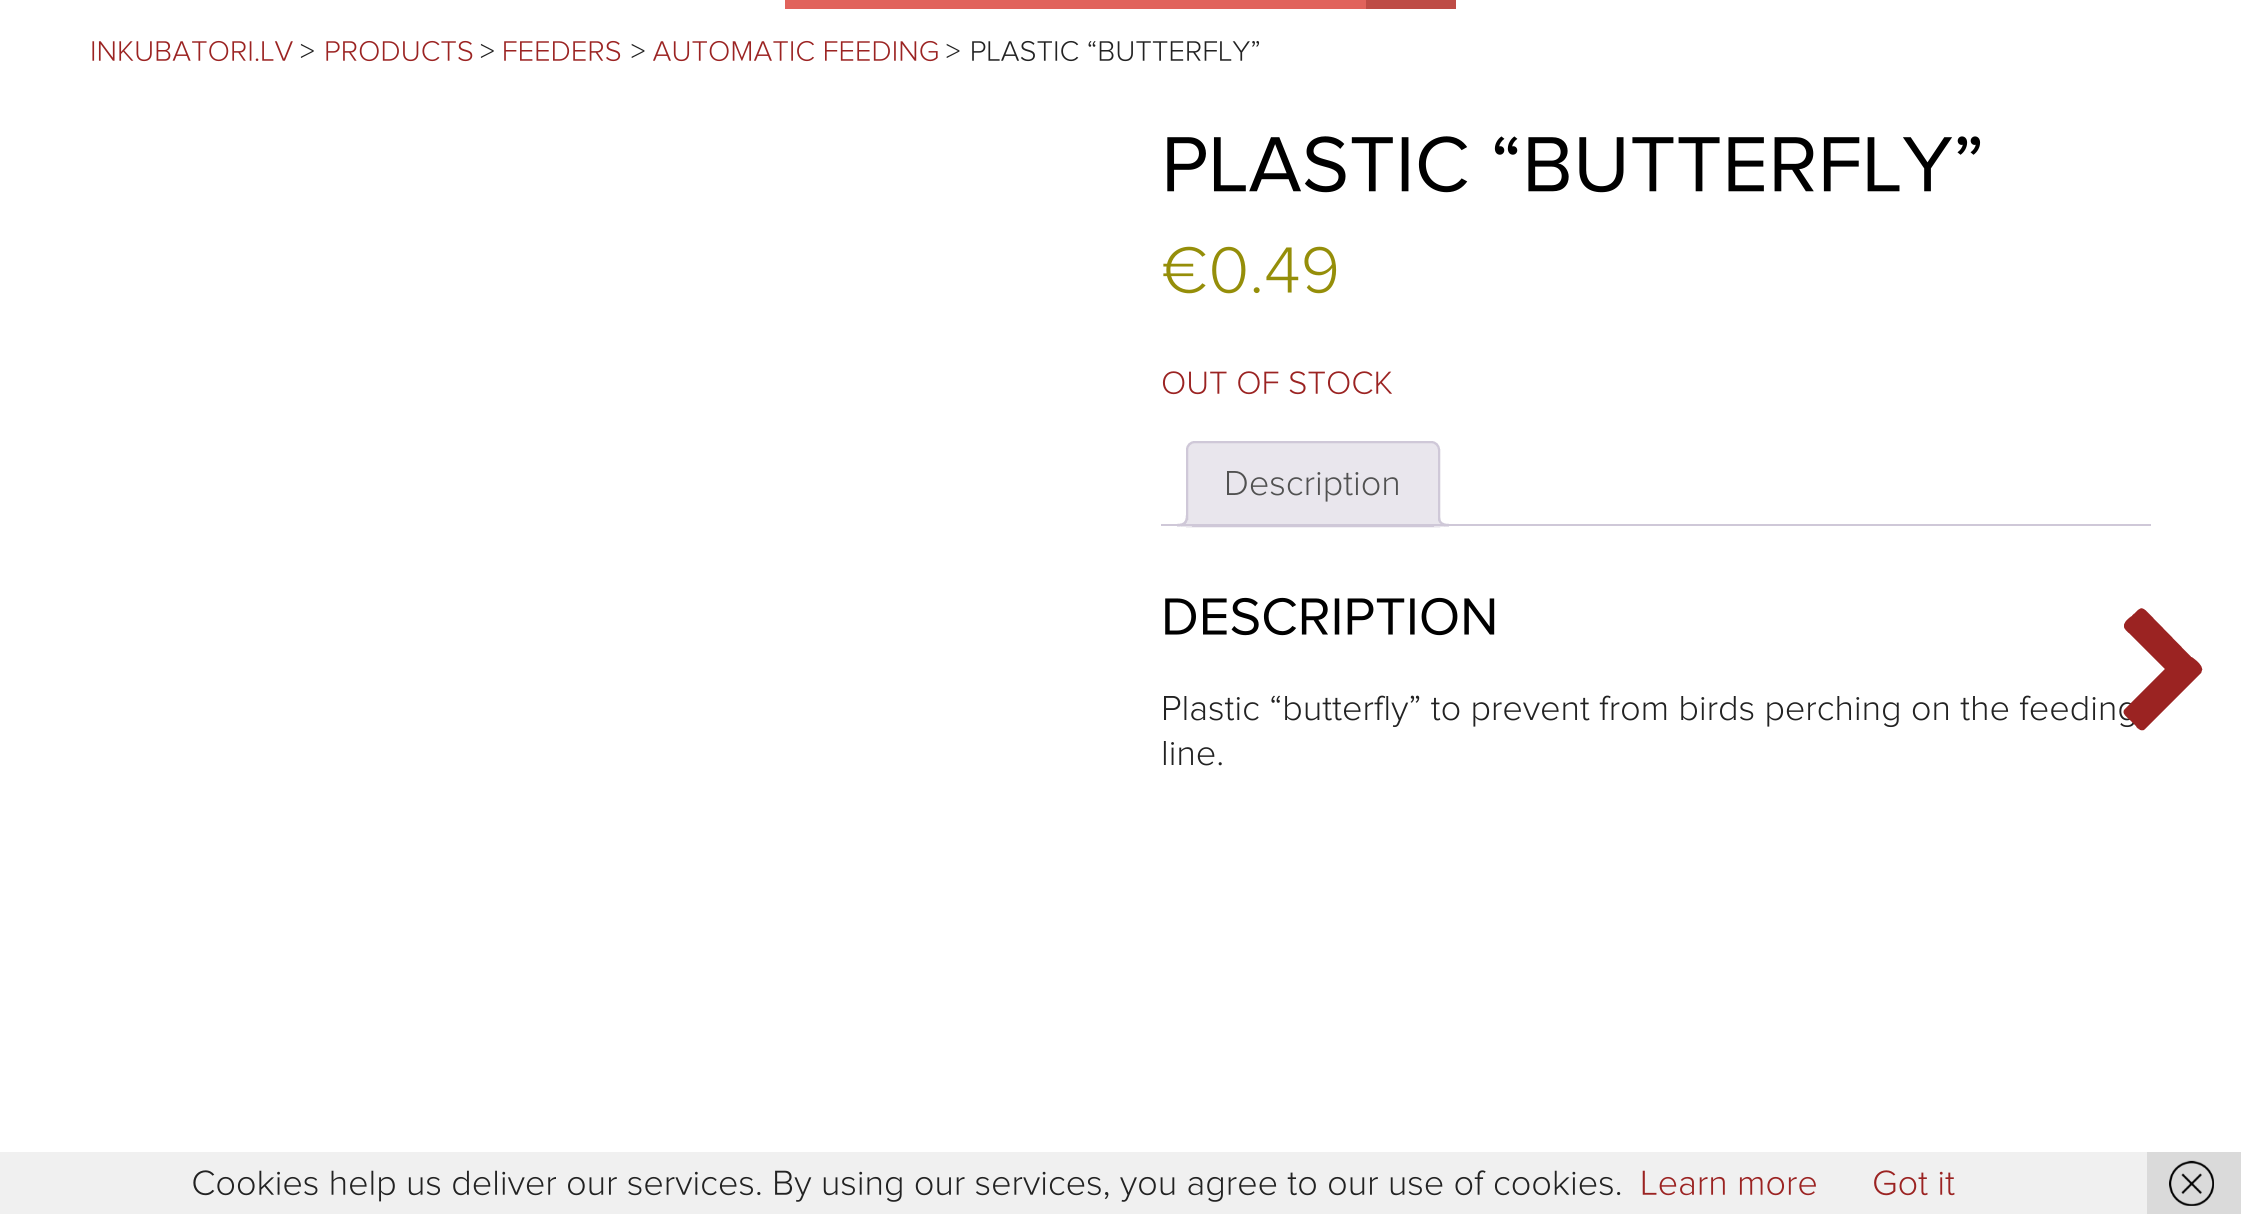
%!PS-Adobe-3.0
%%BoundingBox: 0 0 2241 1214
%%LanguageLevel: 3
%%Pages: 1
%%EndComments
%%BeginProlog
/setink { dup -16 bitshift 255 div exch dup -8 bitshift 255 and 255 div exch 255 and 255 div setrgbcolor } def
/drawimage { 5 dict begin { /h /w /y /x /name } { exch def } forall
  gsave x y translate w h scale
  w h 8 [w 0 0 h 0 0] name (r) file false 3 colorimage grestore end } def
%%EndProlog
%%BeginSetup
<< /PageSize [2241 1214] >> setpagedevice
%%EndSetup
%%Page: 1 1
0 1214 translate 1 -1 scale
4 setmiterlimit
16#FFFFFF setink
0 0 2241 1214 rectfill
16#E1635C setink
785 0 581 9 rectfill
16#BE4C46 setink
1366 0 90 9 rectfill
(img1.raw) 92 40 201 22 drawimage
(img2.raw) 300 43 14 15 drawimage
(img3.raw) 326 40 147 22 drawimage
(img2.raw) 480 43 14 15 drawimage
(img4.raw) 504 40 117 22 drawimage
(img5.raw) 631 43 14 15 drawimage
(img6.raw) 653 40 285 22 drawimage
(img5.raw) 946 43 14 15 drawimage
(img7.raw) 972 40 288 22 drawimage
(img8.raw) 1167 136 814 57 drawimage
(img9.raw) 1163 246 43 48 drawimage
(img10.raw) 1212 246 125 48 drawimage
(img11.raw) 1162 371 230 24 drawimage
16#E9E6ED setink
1195 442 moveto 1431 442 lineto 1435.5 442 1439 445.5 1439 450 curveto 1439 526 lineto 1187 526 lineto 1187 450 lineto 1187 445.5 1190.5 442 1195 442 curveto closepath gsave fill grestore
16#CFC8D8 setink
2 setlinewidth
stroke
(img12.raw) 1227 471 171 31 drawimage
gsave
1161 441 990 86 rectclip
16#E9E6ED setink
1181 526.5 moveto 1181 531 lineto 1189 531 1193 529 1193 520 curveto 1187.5 520 lineto 1186.5 523 1184 525.5 1181 526.5 curveto closepath fill
grestore
1177 515 moveto 1188 515 lineto 1188 523.5 1185 526.5 1177 526.5 curveto closepath 1177 515 moveto 1186 515 lineto 1186 522 1183.5 524 1177 524 curveto closepath eofill
gsave
1161 441 990 86 rectclip
16#E9E6ED setink
1433 520 moveto 1433 529 1437 531 1445 531 curveto 1445 526.5 lineto 1441.5 525.5 1439 523 1438 520 curveto closepath fill
grestore
1438 515 moveto 1449 515 lineto 1449 526.5 lineto 1447 526.5 lineto 1442 526.5 1438 522.5 1438 517.5 curveto closepath 1440 515 moveto 1449 515 lineto 1449 524 lineto 1444.5 524 1440 523 1440 517.5 curveto closepath eofill
1161 524 990 2 rectfill
(img13.raw) 1165 597 330 39 drawimage
(img14.raw) 1164 695 970 33 drawimage
(img15.raw) 1163 741 59 25 drawimage
16#9B2322 setink
2201 673 moveto 2145 729 lineto 2142 732 2138 729 2136 726 curveto 2130 720 lineto 2127 717 2121 713 2125 709 curveto 2165 669 lineto 2132 636 lineto 2131 634 2124 630 2124 626 curveto 2124 622 2129 618 2132 616 curveto 2143 605 2141 606 2154 619 curveto 2191 657 lineto 2192 657 2203 665 2202 670 curveto closepath fill
16#F0F0F0 setink
0 1152 2147 62 rectfill
(img16.raw) 193 1170 1428 32 drawimage
(img17.raw) 1642 1170 174 26 drawimage
(img18.raw) 1874 1170 81 26 drawimage
16#DADADA setink
2147 1152 94 62 rectfill
(img19.raw) 2169 1160 45 46 drawimage
showpage
%%EOF
